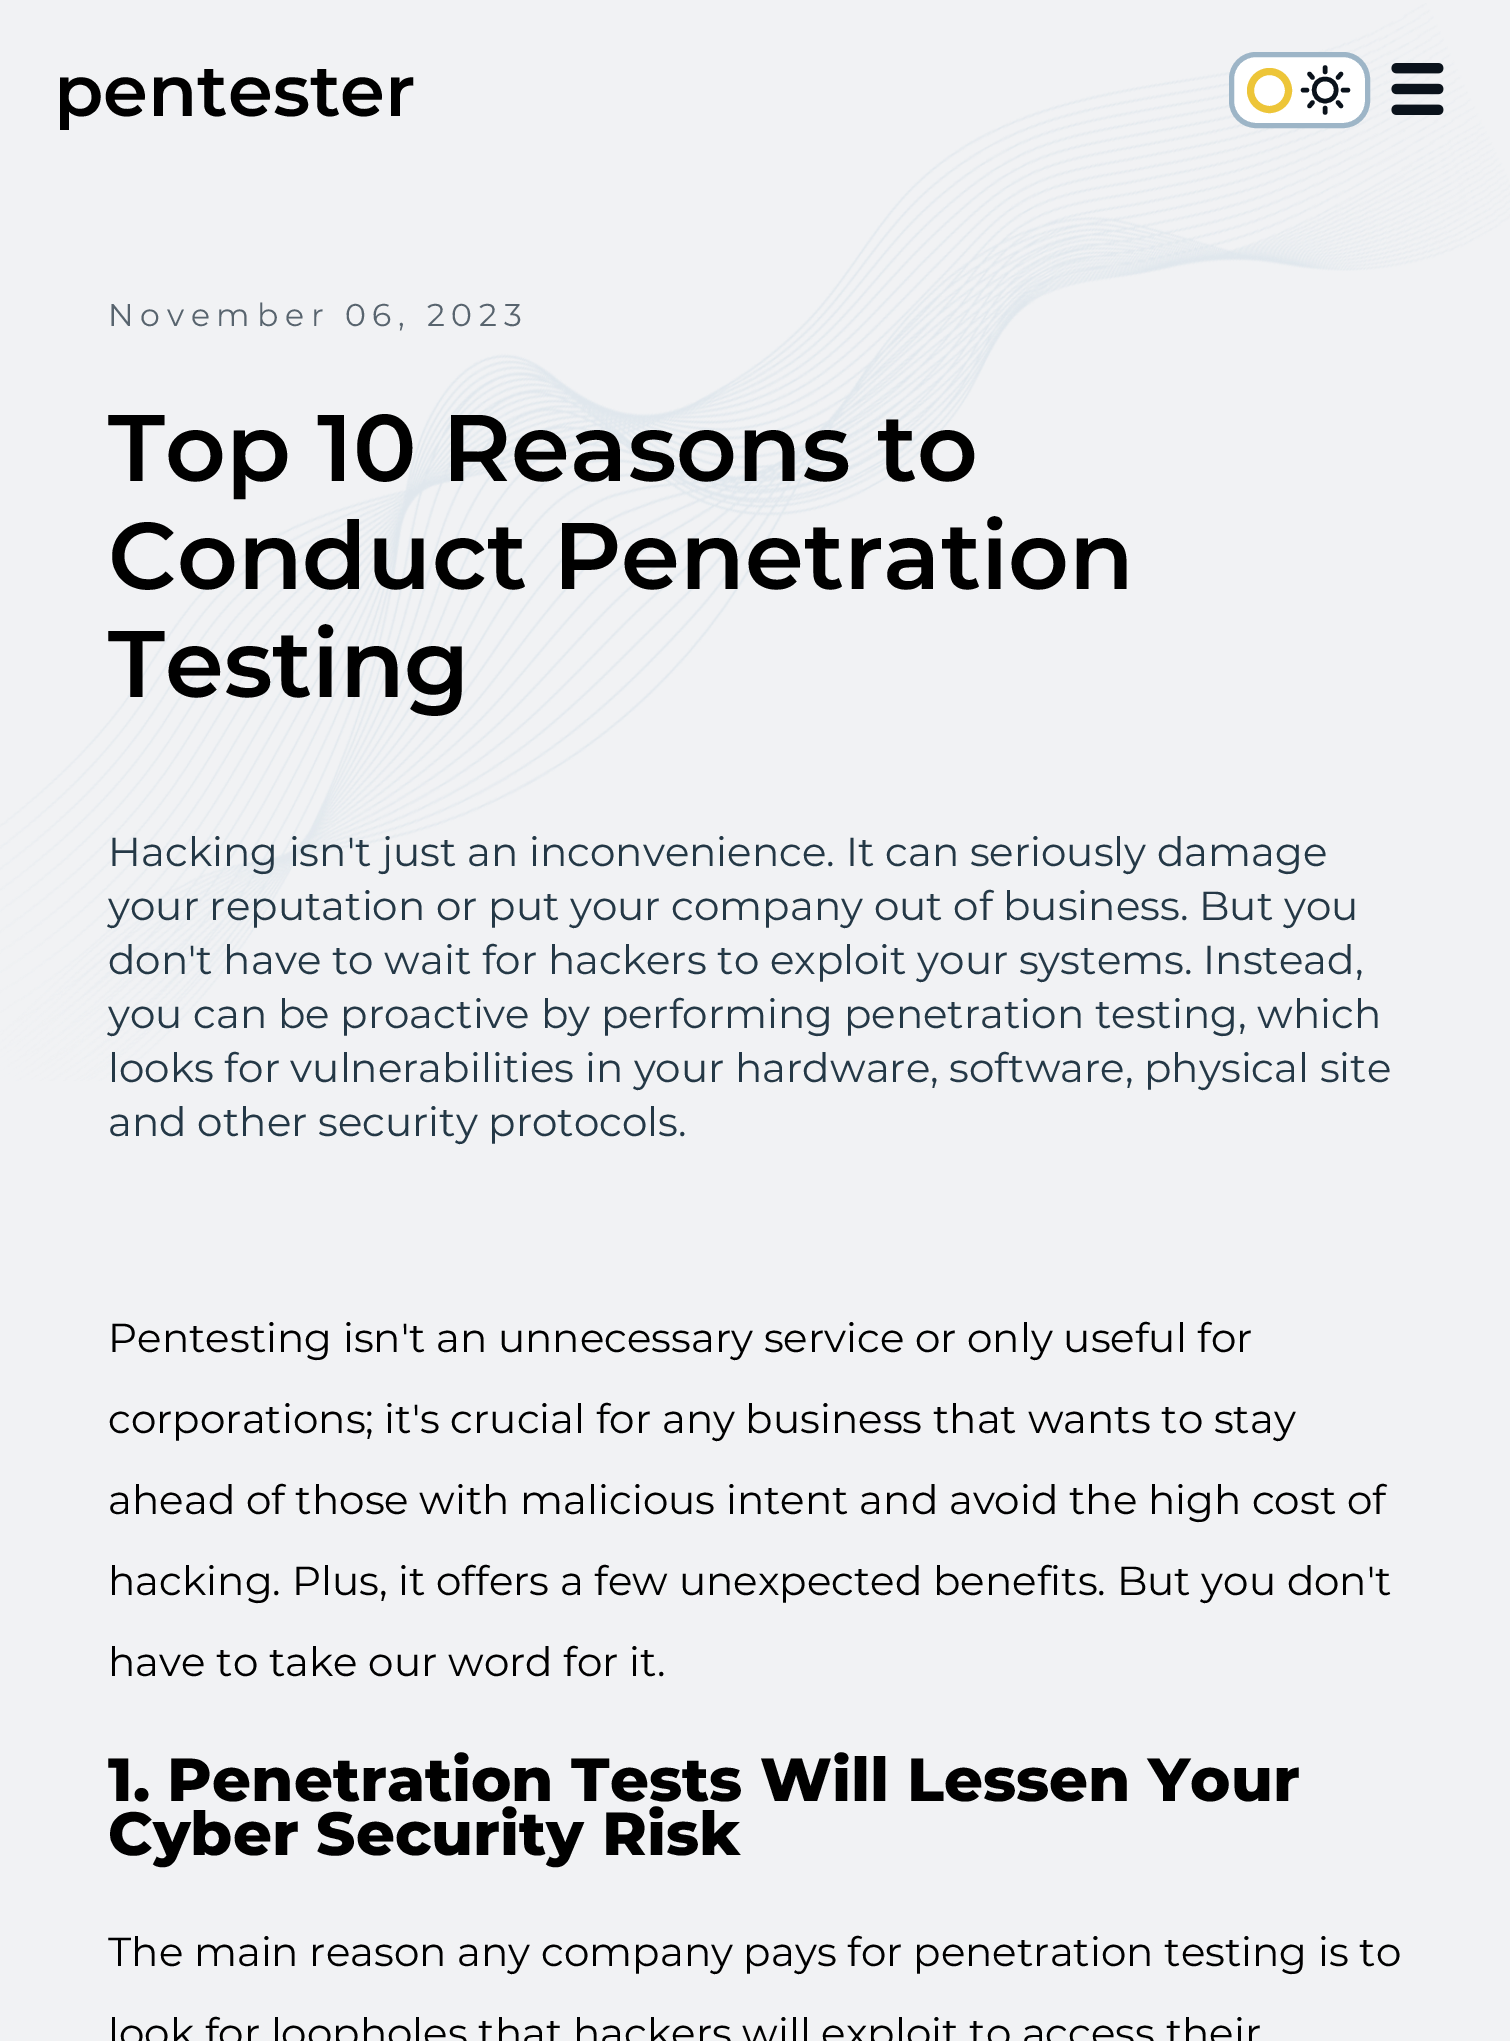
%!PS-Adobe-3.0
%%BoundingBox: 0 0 1510 2041
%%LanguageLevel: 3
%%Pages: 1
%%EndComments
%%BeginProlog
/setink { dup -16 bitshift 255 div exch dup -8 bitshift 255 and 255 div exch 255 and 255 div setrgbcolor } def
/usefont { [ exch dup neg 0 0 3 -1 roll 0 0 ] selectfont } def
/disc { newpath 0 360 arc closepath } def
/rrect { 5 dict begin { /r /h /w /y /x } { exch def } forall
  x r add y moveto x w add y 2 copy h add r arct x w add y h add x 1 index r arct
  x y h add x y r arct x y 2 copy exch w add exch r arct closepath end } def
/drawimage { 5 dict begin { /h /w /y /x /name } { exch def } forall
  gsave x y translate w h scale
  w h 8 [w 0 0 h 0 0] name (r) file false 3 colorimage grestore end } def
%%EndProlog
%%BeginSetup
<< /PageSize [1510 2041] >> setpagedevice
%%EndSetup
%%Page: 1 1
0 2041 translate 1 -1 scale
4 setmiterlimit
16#F1F2F4 setink
0 0 1510 2041 rectfill
(img1.raw) 0 3 1510 1078 drawimage
/Montserrat-SemiBold 72 usefont
16#000000 setink
54 116 moveto (pentester) show
16#FFFFFF setink
1231.5 54.5 136 71 24.5 rrect gsave fill grestore
16#9DB5C7 setink
5 setlinewidth
stroke
16#EDC538 setink
7 setlinewidth
1269.5 90.5 19 disc stroke
16#0A121B setink
4.5 setlinewidth
1 setlinecap
1 setlinejoin
1325 72 moveto 1325 67.5 lineto 1325 112.5 moveto 1325 108 lineto 1343 90 moveto 1348 90 lineto 1303 90 moveto 1307 90 lineto 1338 77.5 moveto 1341 74 lineto 1309.5 106 moveto 1312.5 102.5 lineto 1312.5 77.5 moveto 1309.5 74 lineto 1341 106 moveto 1338 102.5 lineto 1325 101 moveto 1340 101 1340 79 1325 79 curveto 1310.5 79 1310.5 101 1325 101 curveto closepath stroke
(img2.raw) 1391 63 53 52 drawimage
/Montserrat-Regular 31.5 usefont
16#58646E setink
108 326 moveto 6.75 0 (November 06, 2023) ashow
/Montserrat-SemiBold 94.5 usefont
16#000000 setink
[
    [(Top 10 Reasons to) 108 481]
    [(Conduct Penetration) 108 589]
    [(Testing) 108 697]
] { aload pop moveto show } forall
/Montserrat-Regular 40.5 usefont
16#243846 setink
[
    [(Hacking isn't just an inconvenience. It can seriously damage) 108 866]
    [(your reputation or put your company out of business. But you) 108 920]
    [(don't have to wait for hackers to exploit your systems. Instead,) 108 974]
    [(you can be proactive by performing penetration testing, which) 108 1028]
    [(looks for vulnerabilities in your hardware, software, physical site) 108 1082]
    [(and other security protocols.) 108 1136]
] { aload pop moveto show } forall
16#000000 setink
[
    [(Pentesting isn't an unnecessary service or only useful for) 108 1352]
    [(corporations; it's crucial for any business that wants to stay) 108 1433]
    [(ahead of those with malicious intent and avoid the high cost of) 108 1514]
    [(hacking. Plus, it offers a few unexpected benefits. But you don't) 108 1595]
    [(have to take our word for it.) 108 1676]
] { aload pop moveto show } forall
/Montserrat-ExtraBold 60.75 usefont
108 1801 moveto (1. Penetration Tests Will Lessen Your) show
108 1855 moveto (Cyber Security Risk) show
/Montserrat-Regular 40.5 usefont
108 1966 moveto (The main reason any company pays for penetration testing is to) show
108 2047 moveto (look for loopholes that hackers will exploit to access their) show
showpage
%%EOF
